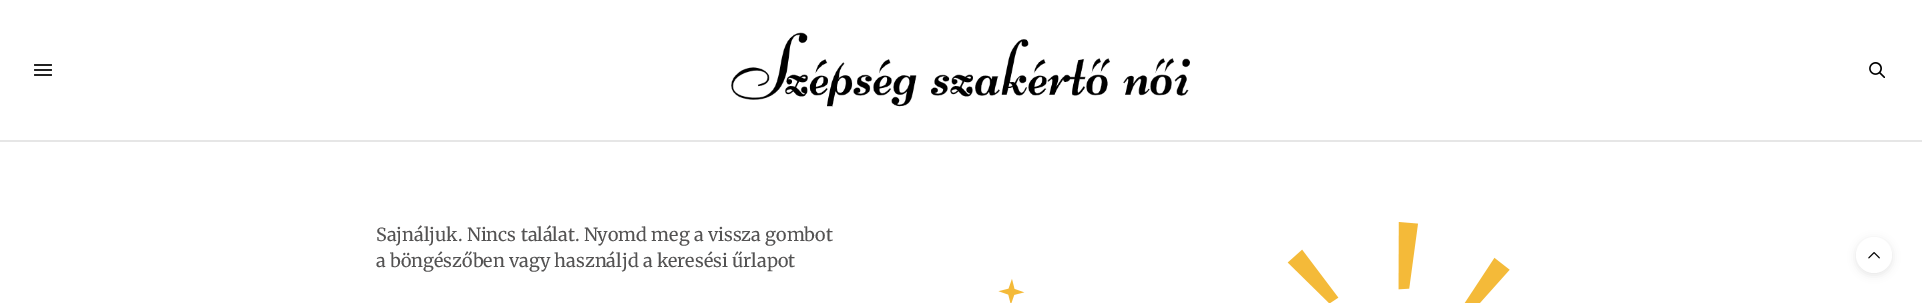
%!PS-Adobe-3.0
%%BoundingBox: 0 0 1922 303
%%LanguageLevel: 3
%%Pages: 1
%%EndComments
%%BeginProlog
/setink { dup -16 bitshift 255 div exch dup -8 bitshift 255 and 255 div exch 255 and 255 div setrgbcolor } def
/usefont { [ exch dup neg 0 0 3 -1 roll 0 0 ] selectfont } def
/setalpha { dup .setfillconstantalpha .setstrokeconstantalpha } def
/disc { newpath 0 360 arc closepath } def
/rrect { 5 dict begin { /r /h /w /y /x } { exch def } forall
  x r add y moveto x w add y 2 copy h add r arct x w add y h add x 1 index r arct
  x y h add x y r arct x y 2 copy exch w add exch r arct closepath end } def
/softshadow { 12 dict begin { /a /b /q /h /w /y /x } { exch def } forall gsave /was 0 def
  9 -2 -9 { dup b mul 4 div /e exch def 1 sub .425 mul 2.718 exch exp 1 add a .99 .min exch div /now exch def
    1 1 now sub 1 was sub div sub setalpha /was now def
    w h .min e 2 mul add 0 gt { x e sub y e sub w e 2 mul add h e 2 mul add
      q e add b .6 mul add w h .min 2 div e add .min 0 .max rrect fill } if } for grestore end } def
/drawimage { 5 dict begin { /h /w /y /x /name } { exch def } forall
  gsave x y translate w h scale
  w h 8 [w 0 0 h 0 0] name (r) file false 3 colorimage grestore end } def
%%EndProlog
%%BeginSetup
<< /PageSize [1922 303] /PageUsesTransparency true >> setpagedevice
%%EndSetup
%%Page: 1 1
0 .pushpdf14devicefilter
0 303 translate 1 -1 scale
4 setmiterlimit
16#FFFFFF setink
0 0 1922 303 rectfill
16#E6E6E6 setink
0 140 1922 2 rectfill
16#222222 setink
34 64 18 2 1 rrect fill
34 69 18 2 1 rrect fill
34 74 18 2 1 rrect fill
(img1.raw) 731 32 459 75 drawimage
(img2.raw) 1869 62 16 16 drawimage
(img3.raw) 998 222 512 81 drawimage
/Merriweather-Regular 18 usefont
16#545353 setink
376 241 moveto (Sajnáljuk. Nincs találat. Nyomd meg a vissza gombot) show
376 267 moveto (a böngészőben vagy használjd a keresési űrlapot) show
16#000000 setink
1856 239 36 36 18 4 0.1 softshadow
16#FFFFFF setink
1874 255 18 disc fill
(img4.raw) 1868 252 12 7 drawimage
.poppdf14devicefilter showpage
%%EOF
